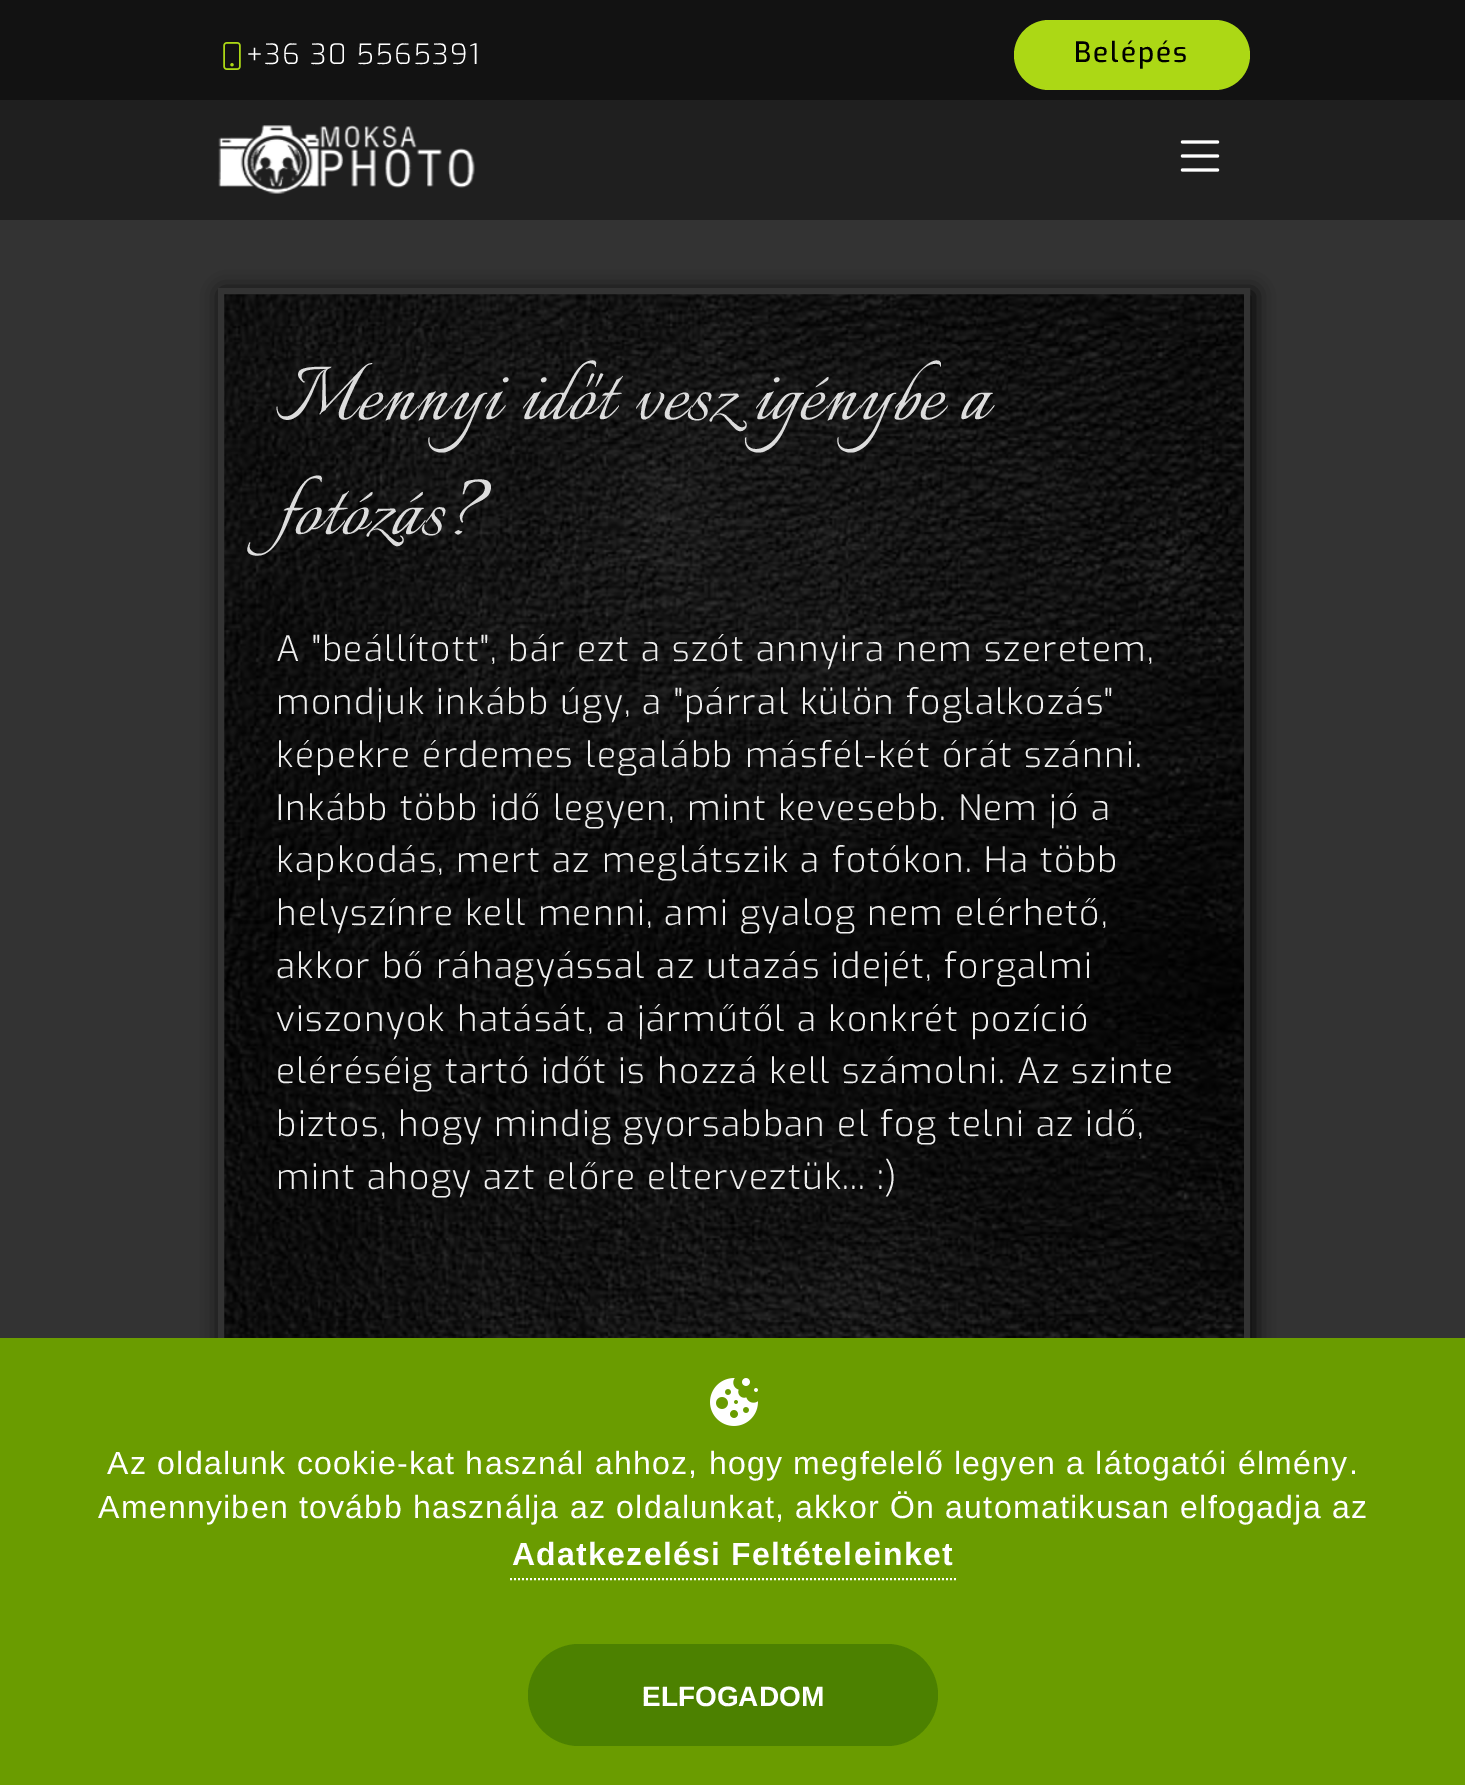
%!PS-Adobe-3.0
%%BoundingBox: 0 0 1465 1785
%%LanguageLevel: 3
%%Pages: 1
%%EndComments
%%BeginProlog
/setink { dup -16 bitshift 255 div exch dup -8 bitshift 255 and 255 div exch 255 and 255 div setrgbcolor } def
/usefont { [ exch dup neg 0 0 3 -1 roll 0 0 ] selectfont } def
/setalpha { dup .setfillconstantalpha .setstrokeconstantalpha } def
/rrect { 5 dict begin { /r /h /w /y /x } { exch def } forall
  x r add y moveto x w add y 2 copy h add r arct x w add y h add x 1 index r arct
  x y h add x y r arct x y 2 copy exch w add exch r arct closepath end } def
/softshadow { 12 dict begin { /a /b /q /h /w /y /x } { exch def } forall gsave /was 0 def
  9 -2 -9 { dup b mul 4 div /e exch def 1 sub .425 mul 2.718 exch exp 1 add a .99 .min exch div /now exch def
    1 1 now sub 1 was sub div sub setalpha /was now def
    w h .min e 2 mul add 0 gt { x e sub y e sub w e 2 mul add h e 2 mul add
      q e add b .6 mul add w h .min 2 div e add .min 0 .max rrect fill } if } for grestore end } def
/drawimage { 5 dict begin { /h /w /y /x /name } { exch def } forall
  gsave x y translate w h scale
  w h 8 [w 0 0 h 0 0] name (r) file false 3 colorimage grestore end } def
%%EndProlog
%%BeginSetup
<< /PageSize [1465 1785] /PageUsesTransparency true >> setpagedevice
%%EndSetup
%%Page: 1 1
0 .pushpdf14devicefilter
0 1785 translate 1 -1 scale
4 setmiterlimit
16#333333 setink
0 0 1465 1785 rectfill
16#121212 setink
0 0 1465 100 rectfill
(img1.raw) 223 42 18 28 drawimage
/Exo-Light 28 usefont
16#FFFFFF setink
246 64 moveto 1.28 0 (+36 30 5565391) ashow
16#ACD815 setink
1014 20 236 70 35 rrect fill
/Exo-Medium 28 usefont
16#000000 setink
1074 62 moveto 2 0 (Belépés) ashow
16#1F1F1F setink
0 100 1465 120 rectfill
(img2.raw) 218 125 257 69 drawimage
(img3.raw) 1180 140 40 32 drawimage
16#000000 setink
222 292 1032 1440 0 10 1 softshadow
(img4.raw) 224 294 1020 1044 drawimage
16#333333 setink
6 setlinewidth
221 291 1026 1434 rectstroke
/Italianno-Regular 96 usefont
16#DDDDDD setink
276 419 moveto 1.28 0 (Mennyi időt vesz igénybe a) ashow
276 534 moveto 1.28 0 (fotózás?) ashow
/Exo-Light 35.2 usefont
16#EEEEEE setink
276 661 moveto 1.28 0 (A "beállított", bár ezt a szót annyira nem szeretem,) ashow
276 714 moveto 1.28 0 (mondjuk inkább úgy, a "párral külön foglalkozás") ashow
276 767 moveto 1.28 0 (képekre érdemes legalább másfél-két órát szánni.) ashow
276 820 moveto 1.28 0 (Inkább több idő legyen, mint kevesebb. Nem jó a) ashow
276 872 moveto 1.28 0 (kapkodás, mert az meglátszik a fotókon. Ha több) ashow
276 925 moveto 1.28 0 (helyszínre kell menni, ami gyalog nem elérhető,) ashow
276 978 moveto 1.28 0 (akkor bő ráhagyással az utazás idejét, forgalmi) ashow
276 1031 moveto 1.28 0 (viszonyok hatását, a járműtől a konkrét pozíció) ashow
276 1083 moveto 1.28 0 (eléréséig tartó időt is hozzá kell számolni. Az szinte) ashow
276 1136 moveto 1.28 0 (biztos, hogy mindig gyorsabban el fog telni az idő,) ashow
276 1189 moveto 1.28 0 (mint ahogy azt előre elterveztük... :\)) ashow
16#6A9C00 setink
0 1338 1465 447 rectfill
(img5.raw) 710 1378 48 48 drawimage
/LiberationSans-Regular 32 usefont
16#FFFFFF setink
107 1474 moveto 1.28 0 (Az oldalunk cookie-kat használ ahhoz, hogy megfelelő legyen a látogatói élmény.) ashow
98 1518 moveto 1.28 0 (Amennyiben tovább használja az oldalunkat, akkor Ön automatikusan elfogadja az) ashow
2 setlinewidth
[2 2] 0 setdash
510 1579 moveto 956 1579 lineto stroke
/LiberationSans-Bold 32 usefont
512 1565 moveto 1.28 0 (Adatkezelési Feltételeinket) ashow
16#4C8100 setink
528 1644 410 102 51 rrect fill
/LiberationSans-Bold 28 usefont
16#FFFFFF setink
642 1706 moveto (ELFOGADOM) show
.poppdf14devicefilter showpage
%%EOF
